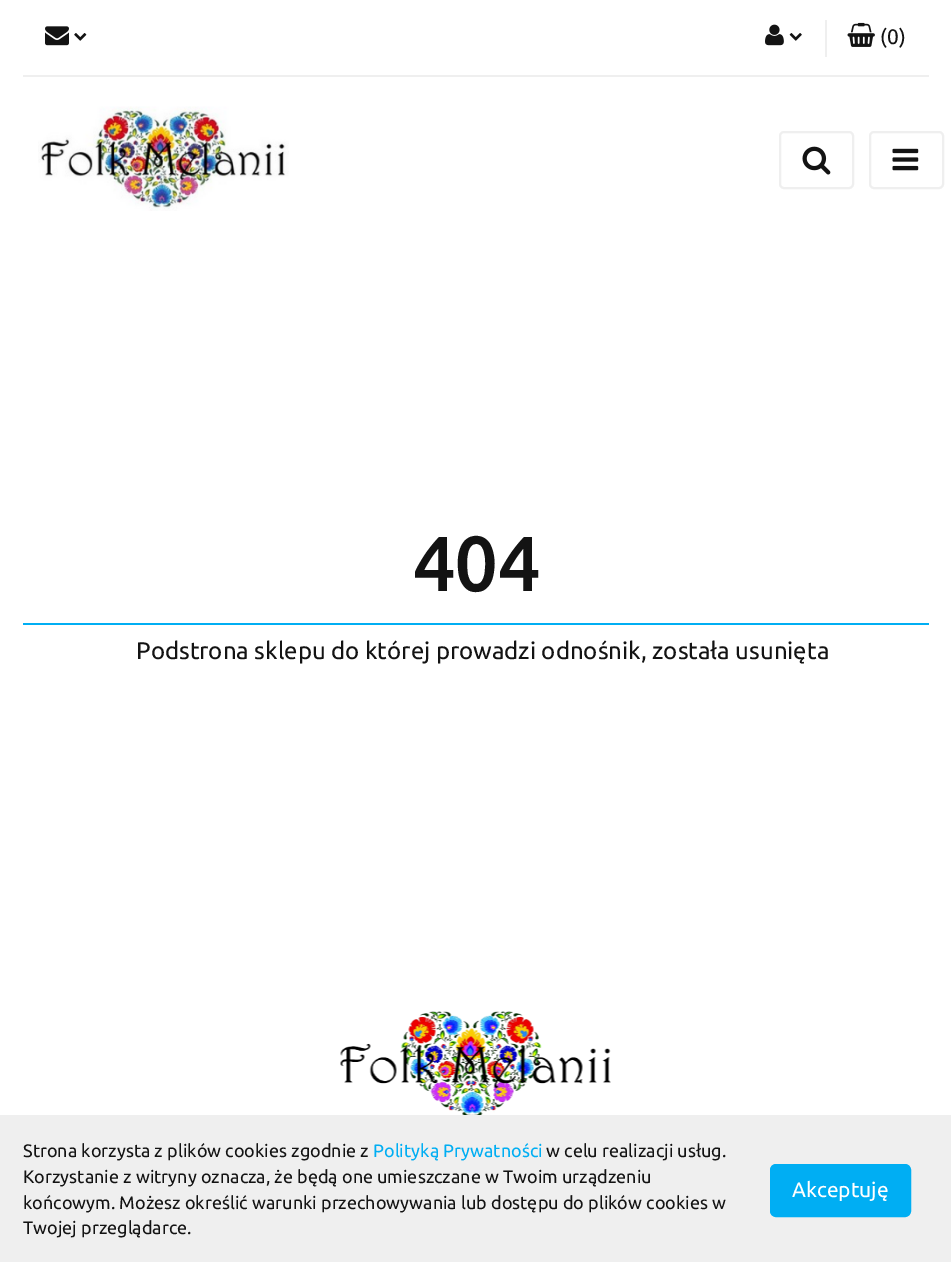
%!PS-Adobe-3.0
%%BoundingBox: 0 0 951 1262
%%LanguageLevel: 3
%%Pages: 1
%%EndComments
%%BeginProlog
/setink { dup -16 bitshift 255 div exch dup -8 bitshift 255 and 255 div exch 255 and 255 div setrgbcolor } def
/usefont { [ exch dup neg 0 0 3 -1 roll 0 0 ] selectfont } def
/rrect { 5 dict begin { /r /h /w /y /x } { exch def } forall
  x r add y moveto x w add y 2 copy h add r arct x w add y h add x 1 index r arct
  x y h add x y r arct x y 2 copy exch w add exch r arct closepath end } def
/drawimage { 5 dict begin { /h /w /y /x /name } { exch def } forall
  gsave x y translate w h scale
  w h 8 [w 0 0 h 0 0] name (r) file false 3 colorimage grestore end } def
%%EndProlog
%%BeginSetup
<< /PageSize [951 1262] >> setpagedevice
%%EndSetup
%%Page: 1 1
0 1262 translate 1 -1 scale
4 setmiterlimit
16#FFFFFF setink
0 0 951 1262 rectfill
16#EFEFEF setink
23 75 906 2 rectfill
(img1.raw) 45 26 24 20 drawimage
(img2.raw) 74 33 13 8 drawimage
(img3.raw) 765 24 19 22 drawimage
(img4.raw) 789 33 13 8 drawimage
825 20 2 37 rectfill
(img5.raw) 847 22 28 25 drawimage
/Ubuntu-Regular 21 usefont
16#131313 setink
[
    [(\() 880 44]
    [(0) 887 44]
    [(\)) 899 44]
] { aload pop moveto show } forall
(img6.raw) 38 106 251 105 drawimage
16#EFEFEF setink
2 setlinewidth
780 132 73 56 4 rrect stroke
(img7.raw) 802 146 29 29 drawimage
870 132 73 56 4 rrect stroke
(img8.raw) 892 148 27 23 drawimage
16#00AEF3 setink
23 623 906 2 rectfill
/Ubuntu-Bold 75 usefont
16#131313 setink
412 591 moveto (404) show
/Ubuntu-Regular 24 usefont
136 659 moveto (Podstrona sklepu do której prowadzi odnośnik, została usunięta) show
(img9.raw) 340 1011 271 104 drawimage
16#EFEFEF setink
0 1115 951 147 rectfill
/Ubuntu-Regular 18 usefont
16#131313 setink
23 1157 moveto (Strona korzysta z plików cookies zgodnie z) show
16#00AEF3 setink
373 1157 moveto (Polityką Prywatności) show
16#131313 setink
[
    [(w celu realizacji usług.) 546 1157]
    [(Korzystanie z witryny oznacza, że będą one umieszczane w Twoim urządzeniu) 23 1183]
    [(końcowym. Możesz określić warunki przechowywania lub dostępu do plików cookies w) 23 1209]
    [(Twojej przeglądarce.) 23 1234]
] { aload pop moveto show } forall
16#00AEF3 setink
772.5 1166.5 136 48 3.5 rrect gsave fill grestore
5 setlinewidth
stroke
/Ubuntu-Regular 21 usefont
16#FFFFFF setink
792 1197 moveto (Akceptuję) show
showpage
%%EOF
